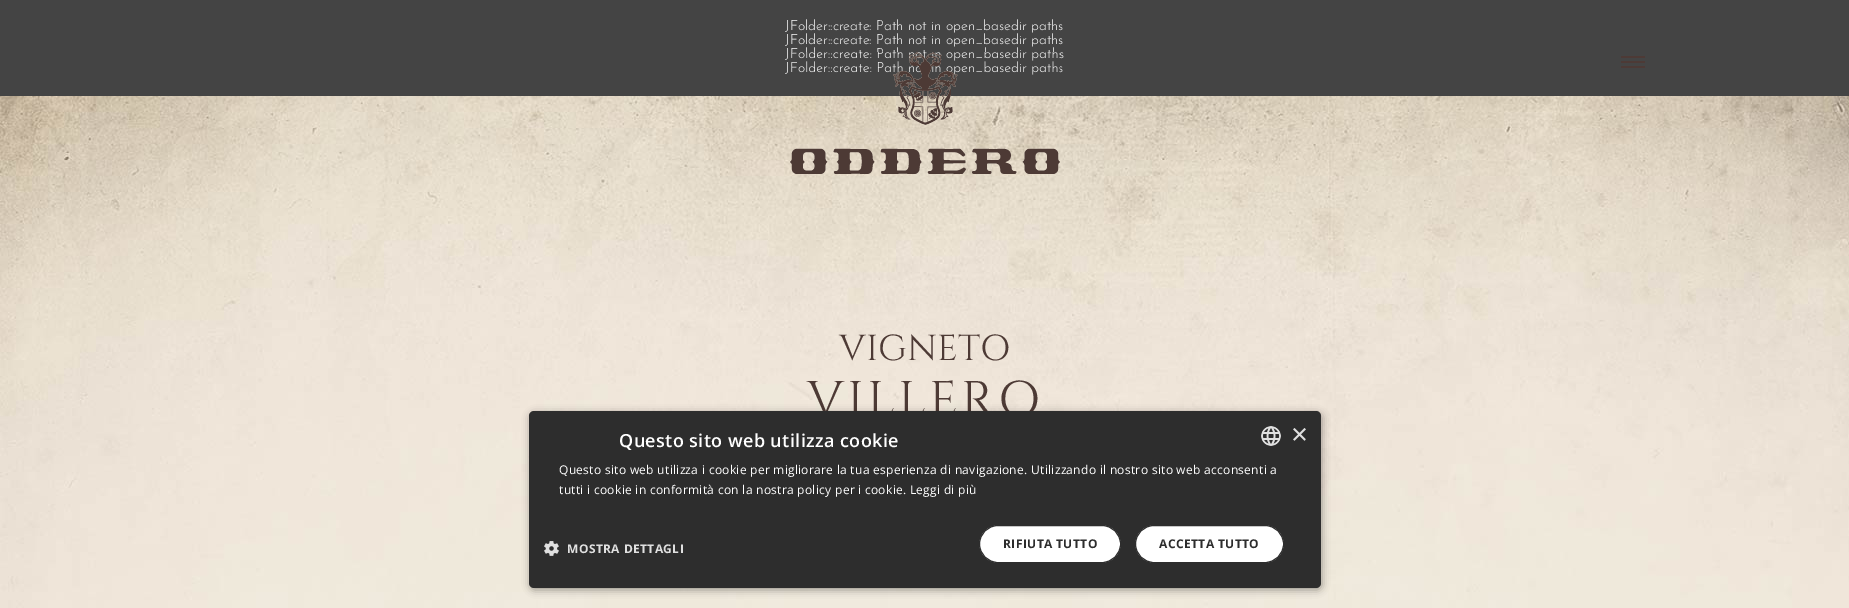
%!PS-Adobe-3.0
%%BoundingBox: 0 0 1849 608
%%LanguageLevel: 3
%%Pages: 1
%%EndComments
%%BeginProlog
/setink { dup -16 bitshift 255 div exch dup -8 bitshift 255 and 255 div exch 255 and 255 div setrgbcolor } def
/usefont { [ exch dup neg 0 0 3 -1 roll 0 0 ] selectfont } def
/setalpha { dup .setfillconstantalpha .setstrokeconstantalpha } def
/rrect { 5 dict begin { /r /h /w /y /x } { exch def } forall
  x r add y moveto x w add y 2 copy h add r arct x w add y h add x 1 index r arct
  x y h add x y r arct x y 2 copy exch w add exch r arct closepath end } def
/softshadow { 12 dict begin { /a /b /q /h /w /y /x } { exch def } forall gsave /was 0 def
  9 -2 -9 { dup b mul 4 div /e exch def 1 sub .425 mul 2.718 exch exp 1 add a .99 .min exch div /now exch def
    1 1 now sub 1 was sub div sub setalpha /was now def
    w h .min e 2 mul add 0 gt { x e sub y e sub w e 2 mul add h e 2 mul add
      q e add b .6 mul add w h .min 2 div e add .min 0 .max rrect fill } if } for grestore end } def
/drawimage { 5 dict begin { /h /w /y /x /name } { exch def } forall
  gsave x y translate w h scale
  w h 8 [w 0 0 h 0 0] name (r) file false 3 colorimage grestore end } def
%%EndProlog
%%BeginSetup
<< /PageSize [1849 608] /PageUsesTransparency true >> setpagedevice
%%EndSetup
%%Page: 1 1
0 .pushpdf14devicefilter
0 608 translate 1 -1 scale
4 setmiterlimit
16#FFFFFF setink
0 0 1849 608 rectfill
(img1.raw) 0 96 1849 512 drawimage
16#444444 setink
0 0 1849 96 rectfill
/JosefinSans-Light 14 usefont
16#FFFFFF setink
[
    [(JFolder::create: Path not in open_basedir paths) 785 30]
    [(JFolder::create: Path not in open_basedir paths) 785 44]
    [(JFolder::create: Path) 785 58]
    [(t) 922 58]
    [(open_basedir paths) 946 58]
    [(JFolder::create: Path not in open_basedir paths) 785 72]
] { aload pop moveto show } forall
(img2.raw) 790 52 270 122 drawimage
[
    [1621 61 24 2 16#4D3A36]
    [1621 56 24 2 16#4D3A36]
    [1621 66 24 2 16#4D3A36]
] { aload pop setink rectfill } forall
/Cinzel-Regular 36 usefont
16#4D3A35 setink
839 360 moveto (VIGNETO) show
/Cinzel-Regular 50 usefont
807 416 moveto 3 0 (VILLERO) ashow
16#000000 setink
530 413 792 177 5 4 0.35 softshadow
16#2D2D2D setink
529 411 792 177 5 rrect fill
/OpenSans-SemiBold 18 usefont
16#FFFFFF setink
619 447 moveto 0.4 0 (Questo sito web utilizza cookie) ashow
(img3.raw) 1261 426 20 20 drawimage
/LiberationSans-Regular 29 usefont
16#E0E0E0 setink
1291 444 moveto (×) show
/OpenSans-Regular 12 usefont
16#FFFFFF setink
559 474 moveto 0.3 0 (Questo sito web utilizza i cookie per migliorare la tua esperienza di navigazione. Utilizzando il nostro sito web acconsenti a) ashow
559 494 moveto 0.3 0 (tutti i cookie in conformità con la nostra policy per i cookie. Leggi di più) ashow
(img4.raw) 544 541 15 15 drawimage
/OpenSans-Bold 12 usefont
16#E0E0E0 setink
567 553 moveto 0.4 0 (MOSTRA DETTAGLI) ashow
16#FFFFFF setink
979.5 525.5 141 37 18.5 rrect gsave fill grestore
16#2D2D2D setink
stroke
1003 548 moveto 0.4 0 (RIFIUTA TUTTO) ashow
16#FFFFFF setink
1135.5 525.5 148 37 18.5 rrect gsave fill grestore
16#2D2D2D setink
stroke
1159 548 moveto 0.4 0 (ACCETTA TUTTO) ashow
.poppdf14devicefilter showpage
%%EOF
